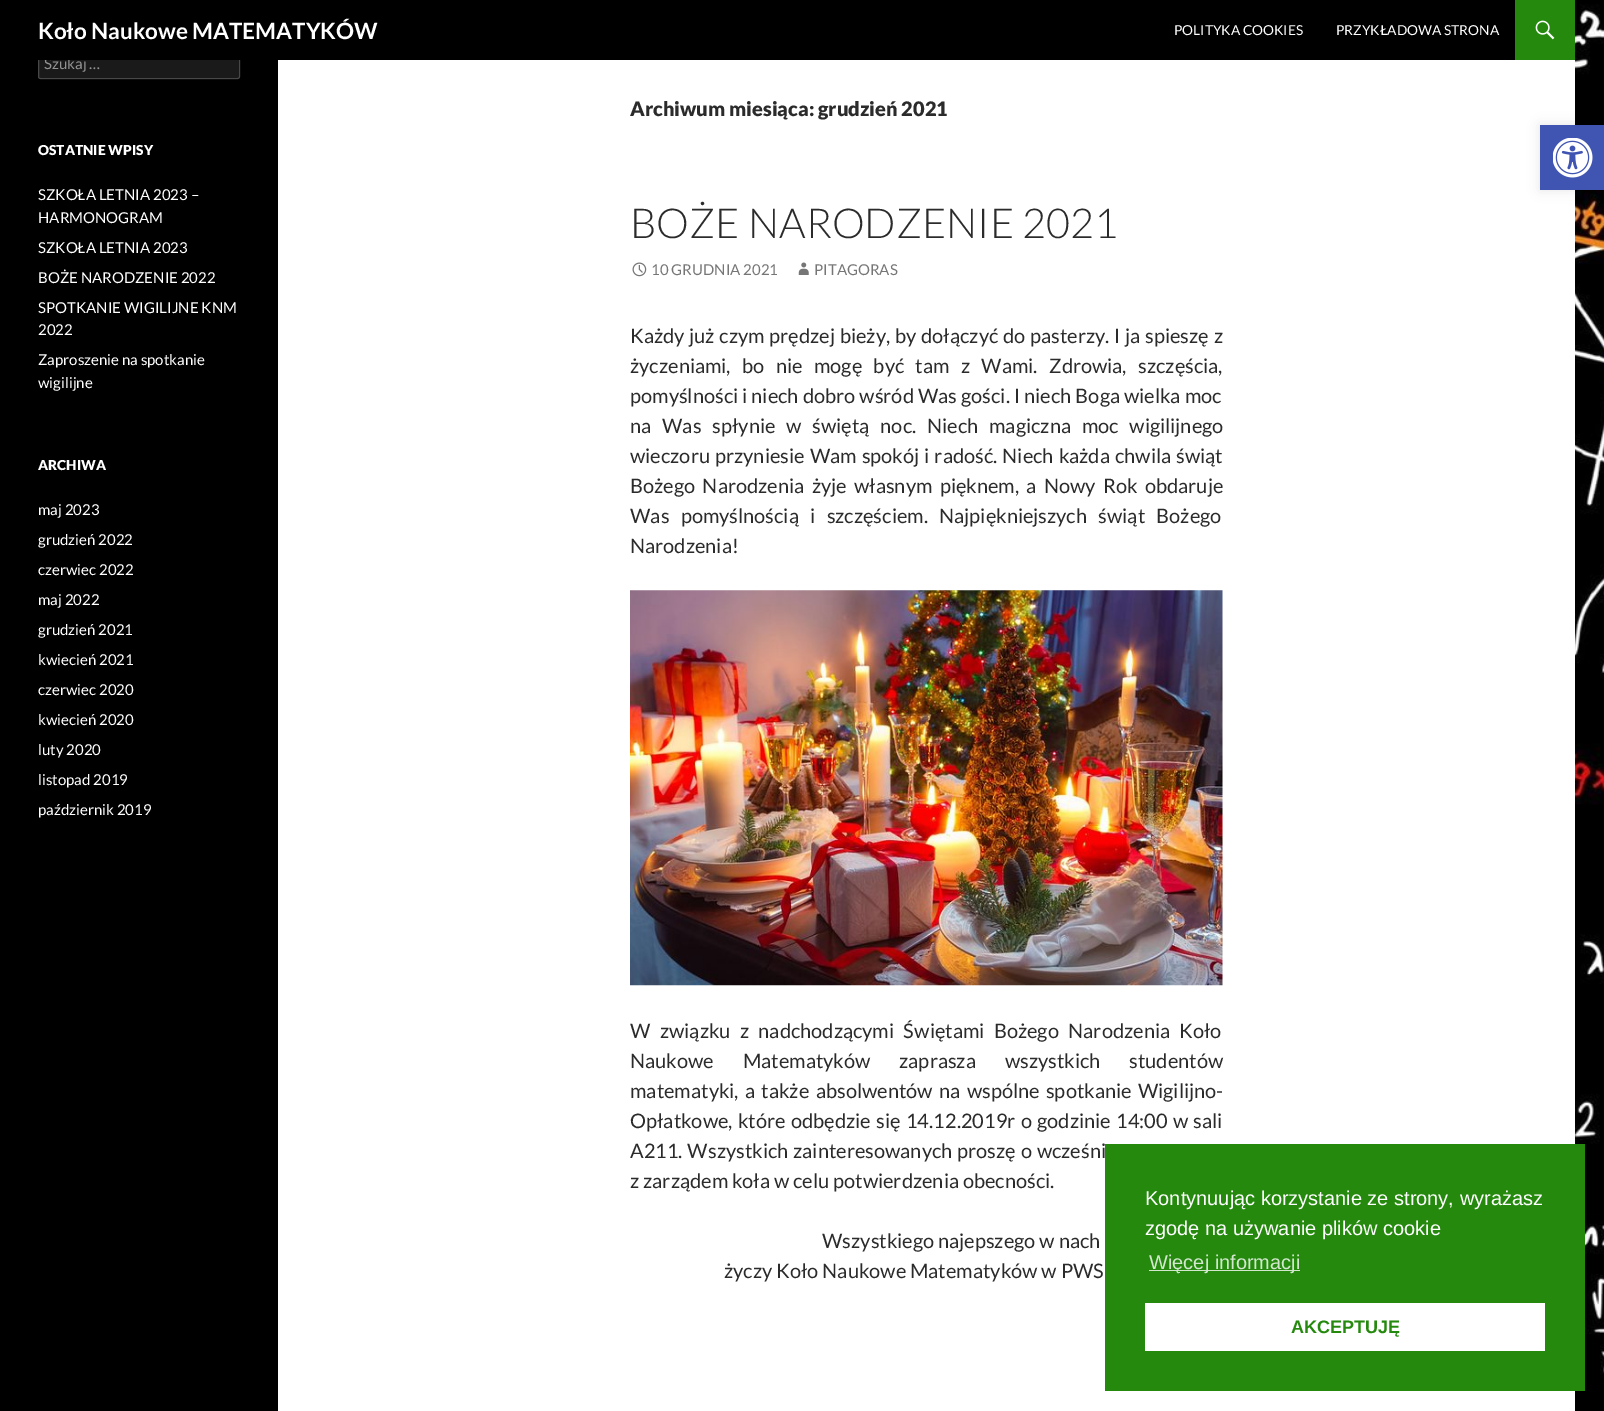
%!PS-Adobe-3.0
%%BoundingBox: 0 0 1604 1411
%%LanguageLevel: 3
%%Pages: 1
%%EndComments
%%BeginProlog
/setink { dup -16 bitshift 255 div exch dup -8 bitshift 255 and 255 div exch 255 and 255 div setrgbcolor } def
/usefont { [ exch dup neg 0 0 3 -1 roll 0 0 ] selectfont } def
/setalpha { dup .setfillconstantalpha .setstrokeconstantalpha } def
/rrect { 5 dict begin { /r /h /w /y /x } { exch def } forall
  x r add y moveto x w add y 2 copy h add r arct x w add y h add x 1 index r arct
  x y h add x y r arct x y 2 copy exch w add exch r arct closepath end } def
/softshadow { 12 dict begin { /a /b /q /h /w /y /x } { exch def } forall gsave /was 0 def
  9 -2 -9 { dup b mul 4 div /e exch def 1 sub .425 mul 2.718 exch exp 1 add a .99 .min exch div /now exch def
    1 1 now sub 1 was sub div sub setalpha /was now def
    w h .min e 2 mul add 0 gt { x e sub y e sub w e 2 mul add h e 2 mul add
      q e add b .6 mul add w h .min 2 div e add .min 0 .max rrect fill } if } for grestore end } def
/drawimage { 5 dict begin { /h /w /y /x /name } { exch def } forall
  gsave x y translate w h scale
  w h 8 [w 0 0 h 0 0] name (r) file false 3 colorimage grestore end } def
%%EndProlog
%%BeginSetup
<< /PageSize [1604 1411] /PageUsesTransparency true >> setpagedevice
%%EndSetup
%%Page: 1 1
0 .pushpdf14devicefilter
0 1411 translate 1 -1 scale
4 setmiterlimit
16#FFFFFF setink
0 0 1604 1411 rectfill
(img1.raw) 1575 0 29 1411 drawimage
16#000000 setink
0 60 278 1351 rectfill
16#1A1A1A setink
38 49 202 30 2.5 rrect fill
0.2 setalpha
16#FFFFFF setink
38.5 49.5 201 29 2 rrect stroke
/Lato-Regular 15 usefont
1 setalpha
16#939393 setink
44 69 moveto (Szukaj …) show
16#000000 setink
0 0 1515 60 rectfill
/Lato-Bold 22.5 usefont
16#FFFFFF setink
38 39 moveto (Koło Naukowe MATEMATYKÓW) show
/Lato-Regular 13.75 usefont
1174 35 moveto (POLITYKA COOKIES) show
1336 35 moveto (PRZYKŁADOWA STRONA) show
16#24890D setink
1515 0 60 60 rectfill
(img2.raw) 1535 20 20 20 drawimage
/Lato-Black 13.75 usefont
16#FFFFFF setink
38 155 moveto (OSTATNIE WPISY) show
/Lato-Regular 15 usefont
[
    [(SZKOŁA LETNIA 2023 –) 38 200]
    [(HARMONOGRAM) 38 223]
    [(SZKOŁA LETNIA 2023) 38 253]
    [(BOŻE NARODZENIE 2022) 38 283]
    [(SPOTKANIE WIGILIJNE KNM) 38 313]
    [(2022) 38 335]
    [(Zaproszenie na spotkanie) 38 365]
    [(wigilijne) 38 388]
] { aload pop moveto show } forall
/Lato-Black 13.75 usefont
38 470 moveto (ARCHIWA) show
/Lato-Regular 15 usefont
[
    [(maj 2023) 38 515]
    [(grudzień 2022) 38 545]
    [(czerwiec 2022) 38 575]
    [(maj 2022) 38 605]
    [(grudzień 2021) 38 635]
    [(kwiecień 2021) 38 665]
    [(czerwiec 2020) 38 695]
    [(kwiecień 2020) 38 725]
    [(luty 2020) 38 755]
    [(listopad 2019) 38 785]
    [(październik 2019) 38 815]
] { aload pop moveto show } forall
/Lato-Black 20 usefont
16#2B2B2B setink
630 116 moveto (Archiwum miesiąca: grudzień 2021) show
/Lato-Light 41.25 usefont
630 238 moveto (BOŻE NARODZENIE 2021) show
(img3.raw) 632 262 15 15 drawimage
/Lato-Regular 15 usefont
16#767676 setink
651 275 moveto (10 GRUDNIA 2021) show
(img4.raw) 798 262 11 13 drawimage
814 275 moveto (PITAGORAS) show
/Lato-Regular 20 usefont
16#2B2B2B setink
630 343 moveto 0.9 0 32 (Każdy już czym prędzej bieży, by dołączyć do pasterzy. I ja spieszę z) widthshow
630 373 moveto 7.5 0 32 (życzeniami, bo nie mogę być tam z Wami. Zdrowia, szczęścia,) widthshow
630 403 moveto 0.25 0 32 (pomyślności i niech dobro wśród Was gości. I niech Boga wielka moc) widthshow
630 433 moveto 7 0 32 (na Was spłynie w świętą noc. Niech magiczna moc wigilijnego) widthshow
630 463 moveto 1.25 0 32 (wieczoru przyniesie Wam spokój i radość. Niech każda chwila świąt) widthshow
630 493 moveto 3.5 0 32 (Bożego Narodzenia żyje własnym pięknem, a Nowy Rok obdaruje) widthshow
630 523 moveto 7.5 0 32 (Was pomyślnością i szczęściem. Najpiękniejszych świąt Bożego) widthshow
630 553 moveto (Narodzenia!) show
(img5.raw) 630 590 593 396 drawimage
630 1038 moveto 5.5 0 32 (W związku z nadchodzącymi Świętami Bożego Narodzenia Koło) widthshow
630 1068 moveto 25 0 32 (Naukowe Matematyków zaprasza wszystkich studentów) widthshow
630 1098 moveto 2.5 0 32 (matematyki, a także absolwentów na wspólne spotkanie Wigilijno-) widthshow
630 1128 moveto 1.5 0 32 (Opłatkowe, które odbędzie się 14.12.2019r o godzinie 14:00 w sali) widthshow
630 1158 moveto 1 0 32 (A211. Wszystkich zainteresowanych proszę o wcześni) widthshow
[
    [(z zarządem koła w celu potwierdzenia obecności.) 630 1188]
    [(Wszystkiego najepszego w nach) 822 1248]
    [(życzy Koło Naukowe Matematyków w PWS) 724 1278]
] { aload pop moveto show } forall
16#000000 setink
1540 125 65 65 0 6 0.1 softshadow
16#4054B2 setink
1540 125 64 65 rectfill
(img6.raw) 1553 138 40 40 drawimage
16#24890D setink
1105 1144 480 247 rectfill
/LiberationSans-Regular 20 usefont
16#FFFFFF setink
1145 1205 moveto (Kontynuując korzystanie ze strony, wyrażasz) show
1145 1235 moveto (zgodę na używanie plików cookie) show
16#D3E7CF setink
1149 1270 151 1 rectfill
1149 1269 moveto (Więcej informacji) show
16#FFFFFF setink
1145 1303 400 48 rectfill
/LiberationSans-Bold 18 usefont
16#24890D setink
1291 1333 moveto (AKCEPTUJĘ) show
.poppdf14devicefilter showpage
%%EOF
